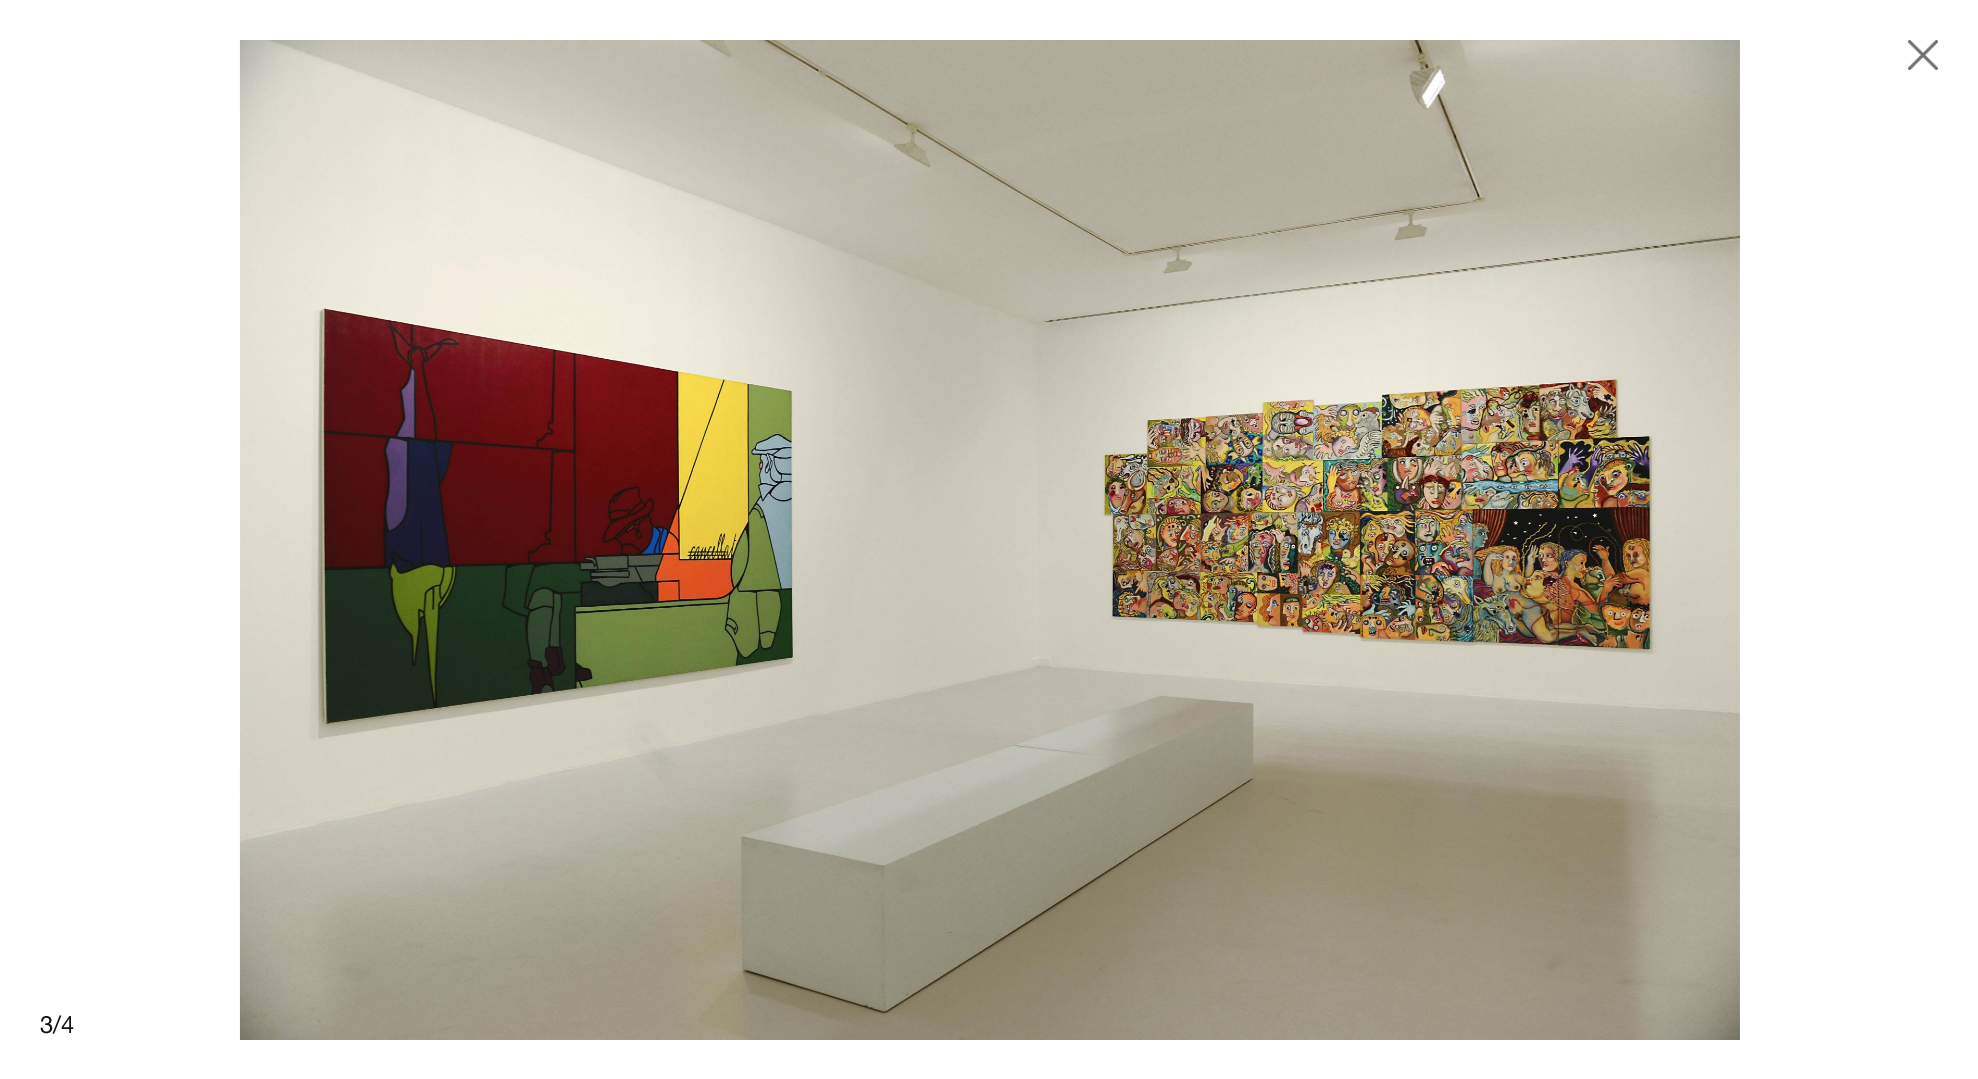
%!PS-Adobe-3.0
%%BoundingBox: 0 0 1978 1079
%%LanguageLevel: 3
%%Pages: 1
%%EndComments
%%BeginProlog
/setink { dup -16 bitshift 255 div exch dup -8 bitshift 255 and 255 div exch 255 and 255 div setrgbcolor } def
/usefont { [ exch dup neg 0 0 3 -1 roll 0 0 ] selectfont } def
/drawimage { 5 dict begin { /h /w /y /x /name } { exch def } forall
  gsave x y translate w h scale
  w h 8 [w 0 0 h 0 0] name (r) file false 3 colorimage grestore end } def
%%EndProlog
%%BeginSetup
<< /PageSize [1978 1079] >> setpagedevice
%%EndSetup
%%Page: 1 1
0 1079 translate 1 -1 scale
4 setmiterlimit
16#FFFFFF setink
0 0 1978 1079 rectfill
(img1.raw) 239 40 1501 1000 drawimage
(img2.raw) 1908 40 30 30 drawimage
/HelveticaNeue-Regular 24 usefont
16#111111 setink
40 1033 moveto (3/4) show
showpage
%%EOF
